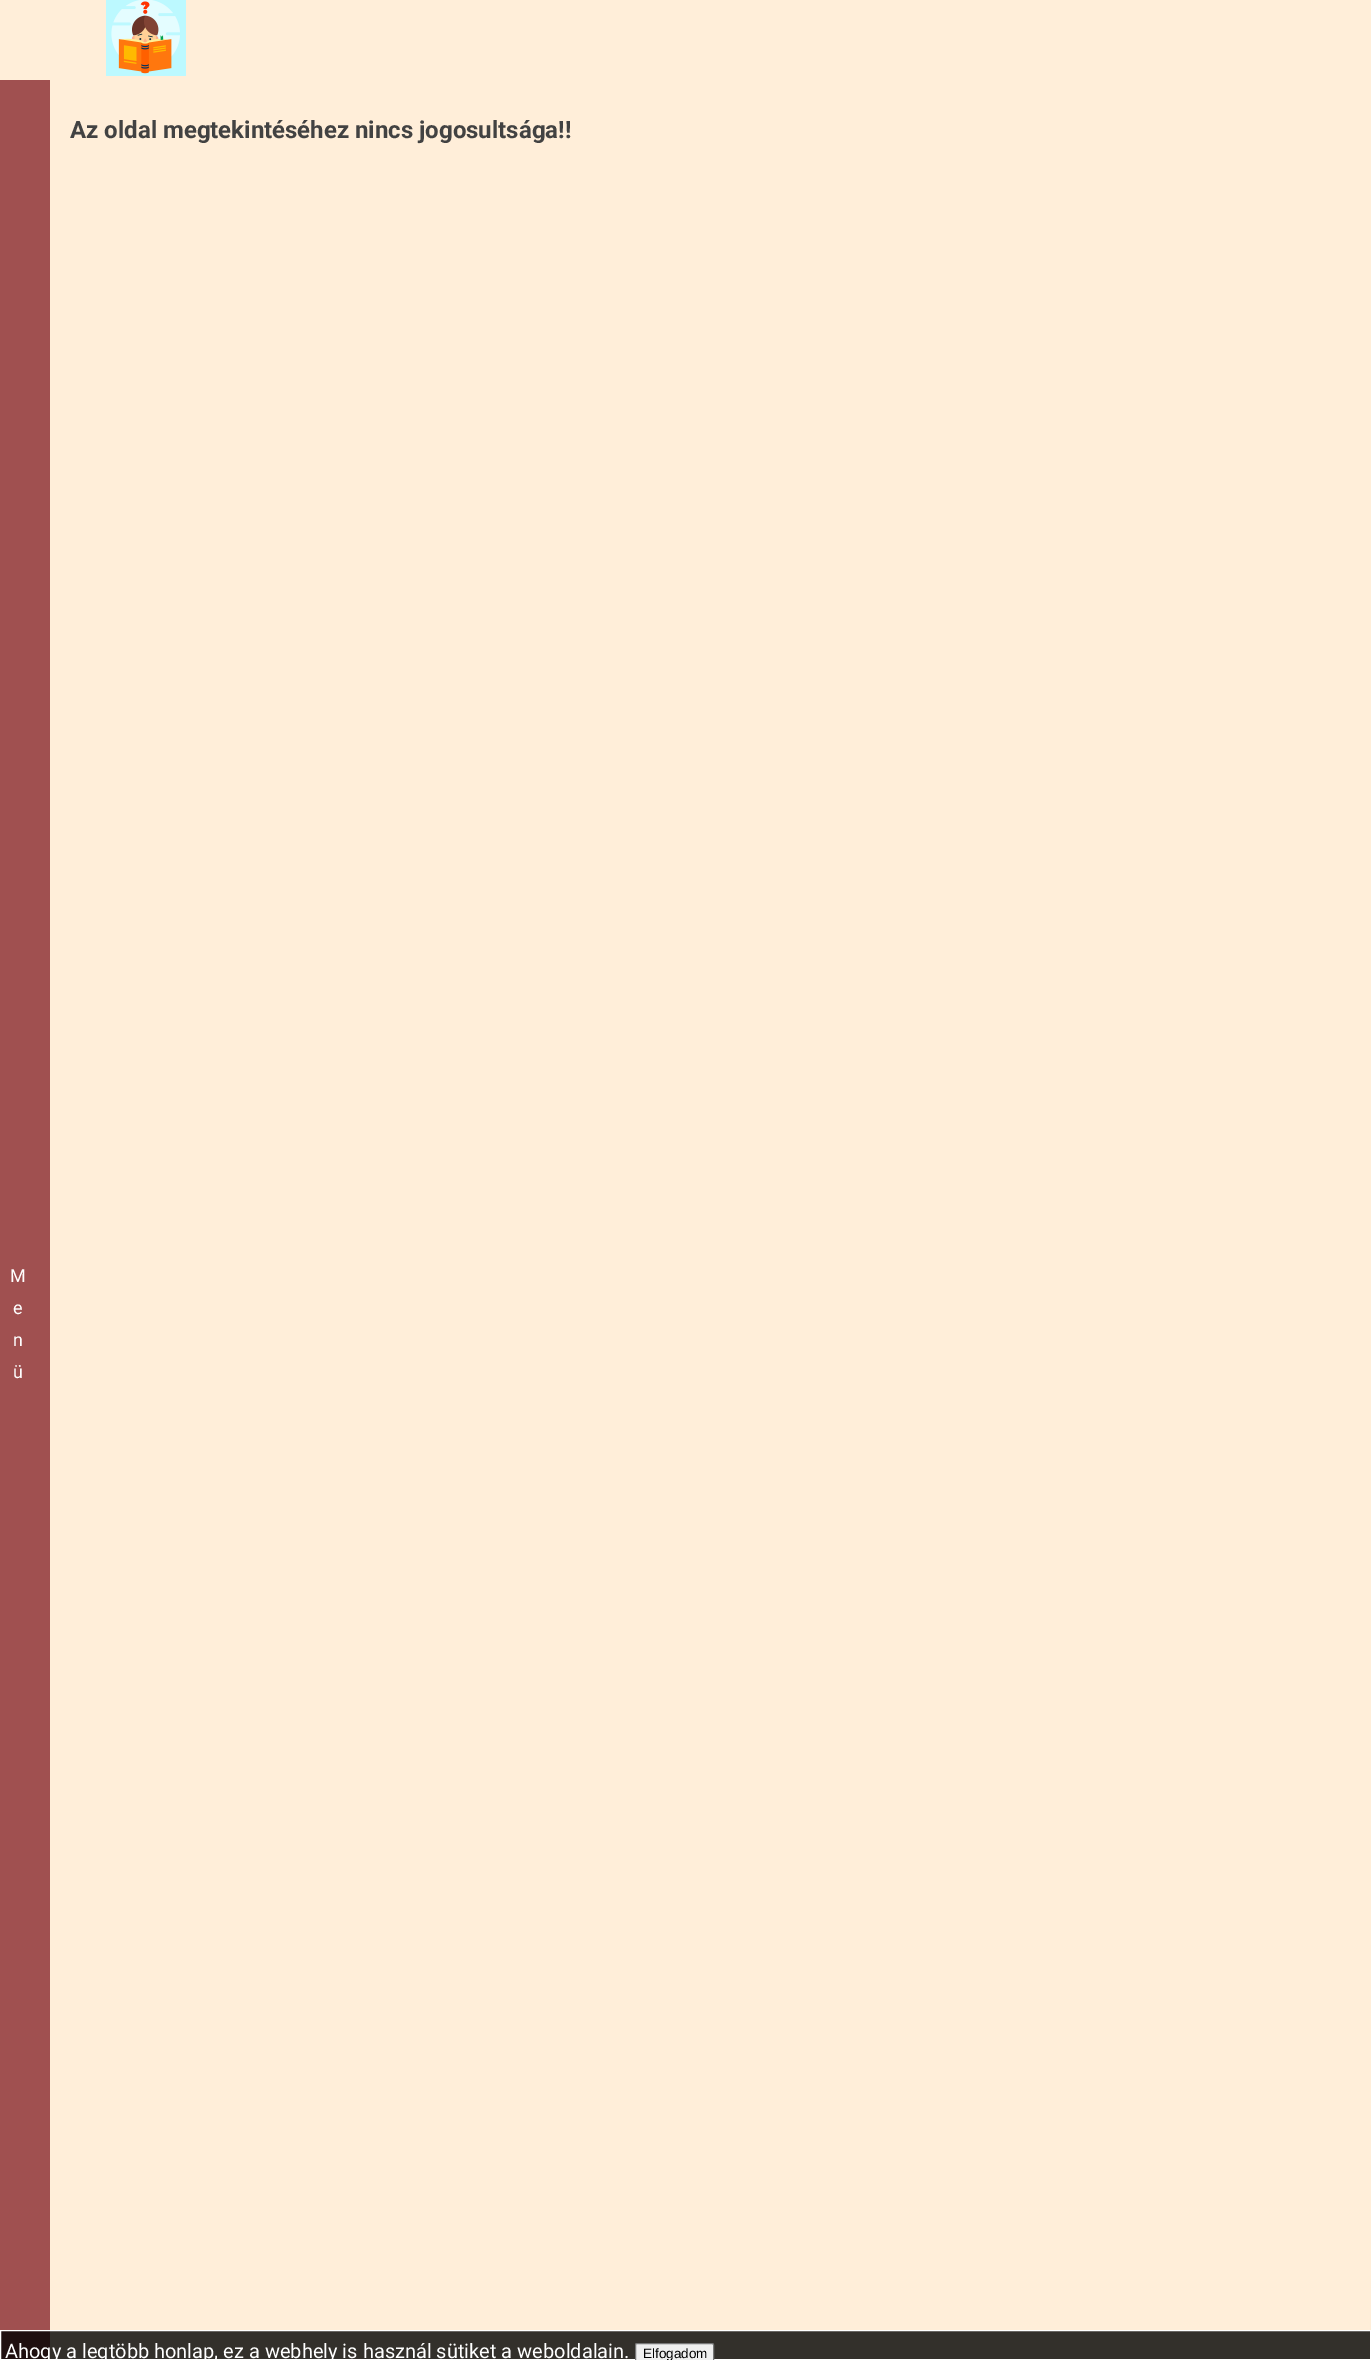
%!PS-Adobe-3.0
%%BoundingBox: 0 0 1371 2360
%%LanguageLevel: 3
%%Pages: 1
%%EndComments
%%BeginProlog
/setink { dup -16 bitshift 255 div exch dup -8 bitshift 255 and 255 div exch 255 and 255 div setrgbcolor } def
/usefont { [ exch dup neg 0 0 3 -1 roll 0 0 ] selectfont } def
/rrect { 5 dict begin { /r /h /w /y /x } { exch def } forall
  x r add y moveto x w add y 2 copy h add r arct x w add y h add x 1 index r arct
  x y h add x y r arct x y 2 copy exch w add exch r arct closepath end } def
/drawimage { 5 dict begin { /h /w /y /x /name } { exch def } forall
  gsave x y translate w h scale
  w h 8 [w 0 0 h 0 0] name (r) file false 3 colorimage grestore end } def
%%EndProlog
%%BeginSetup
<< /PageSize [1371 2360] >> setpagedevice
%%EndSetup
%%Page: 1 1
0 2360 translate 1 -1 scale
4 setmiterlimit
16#FFEED9 setink
0 0 1371 2360 rectfill
16#33302B setink
50 2331 1320 28 rectfill
(img1.raw) 106 0 80 76 drawimage
/Roboto-Bold 24 usefont
16#424242 setink
70 138 moveto (Az oldal megtekintéséhez nincs jogosultsága!!) show
16#A05050 setink
0 80 50 2250 rectfill
16#201010 setink
1 2331 49 28 rectfill
/Roboto-Regular 18 usefont
16#FFFFFF setink
[
    [(M) 10 1282]
    [(e) 13 1314]
    [(n) 13 1346]
    [(ü) 13 1378]
] { aload pop moveto show } forall
0.5 2330.5 1370 29 rectstroke
/Roboto-Regular 20 usefont
5 2358 moveto (Ahogy a legtöbb honlap, ez a webhely is használ sütiket a weboldalain.) show
16#EFEFEF setink
635.5 2343.5 78 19 1.5 rrect gsave fill grestore
16#767676 setink
stroke
/LiberationSans-Regular 13.5 usefont
16#000000 setink
643 2358 moveto (Elfogadom) show
showpage
%%EOF
